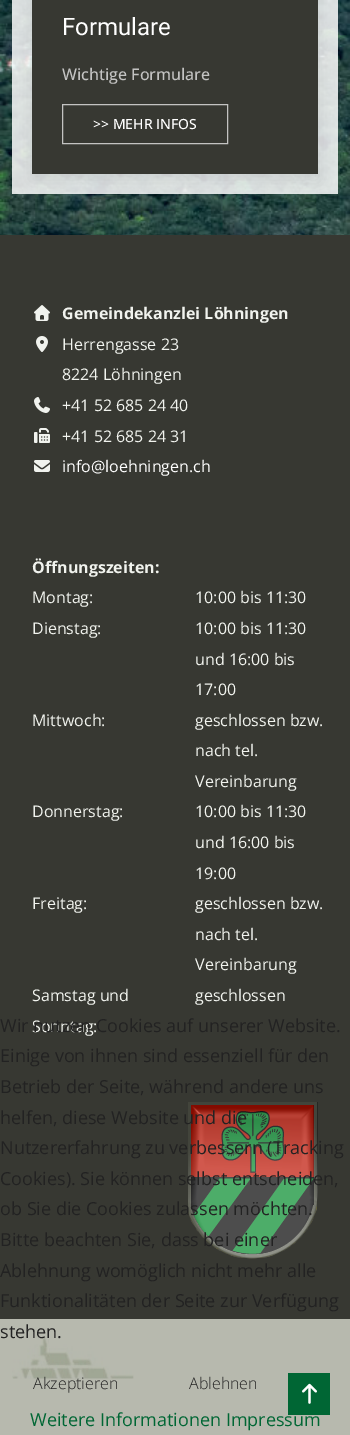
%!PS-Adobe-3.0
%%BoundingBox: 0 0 350 1435
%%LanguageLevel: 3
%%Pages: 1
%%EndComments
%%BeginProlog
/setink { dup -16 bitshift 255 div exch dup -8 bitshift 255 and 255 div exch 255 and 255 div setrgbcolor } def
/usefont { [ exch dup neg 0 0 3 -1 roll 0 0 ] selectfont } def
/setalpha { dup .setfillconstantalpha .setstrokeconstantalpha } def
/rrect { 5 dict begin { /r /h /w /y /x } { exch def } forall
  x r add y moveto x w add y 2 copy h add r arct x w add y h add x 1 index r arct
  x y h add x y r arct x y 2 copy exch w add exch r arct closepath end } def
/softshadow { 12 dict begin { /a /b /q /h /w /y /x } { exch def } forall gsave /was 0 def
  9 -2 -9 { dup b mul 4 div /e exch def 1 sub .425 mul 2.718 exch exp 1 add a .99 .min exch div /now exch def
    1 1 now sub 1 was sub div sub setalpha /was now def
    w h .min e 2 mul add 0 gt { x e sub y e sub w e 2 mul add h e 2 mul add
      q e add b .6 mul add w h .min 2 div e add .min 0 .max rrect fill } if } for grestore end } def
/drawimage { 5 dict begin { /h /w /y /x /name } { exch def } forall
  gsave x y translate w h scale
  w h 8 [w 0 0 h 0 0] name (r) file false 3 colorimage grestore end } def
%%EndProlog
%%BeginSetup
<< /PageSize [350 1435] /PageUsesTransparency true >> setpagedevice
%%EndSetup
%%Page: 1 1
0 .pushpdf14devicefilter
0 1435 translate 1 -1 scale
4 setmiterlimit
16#373832 setink
0 0 350 1435 rectfill
(img1.raw) 0 0 350 235 drawimage
0.84 setalpha
16#FFFFFF setink
12 0 326 194 rectfill
1 setalpha
16#000000 setink
32 -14 286 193 0 7.5 0.08 softshadow
16#373832 setink
32 0 286 174 rectfill
/Roboto-Regular 24 usefont
16#FFFFFF setink
62 35 moveto (Formulare) show
/OpenSans-Medium 16 usefont
16#C3C3C2 setink
62 80 moveto (Wichtige Formulare) show
62.5 104.5 165 39 rectstroke
/OpenSans-Medium 14 usefont
16#FFFFFF setink
93 129 moveto (>> MEHR INFOS) show
(img2.raw) 34 305 16 16 drawimage
/OpenSans-Bold 16 usefont
16#F1F3EE setink
62 319 moveto (Gemeindekanzlei Löhningen) show
(img3.raw) 36 336 12 16 drawimage
/OpenSans-Regular 16 usefont
62 350 moveto (Herrengasse 23) show
62 380 moveto (8224 Löhningen) show
(img4.raw) 34 397 16 16 drawimage
62 411 moveto (+41 52 685 24 40) show
(img5.raw) 34 428 16 15 drawimage
62 442 moveto (+41 52 685 24 31) show
(img6.raw) 34 460 16 12 drawimage
16#FFFFFF setink
62 472 moveto (info@loehningen.ch) show
/OpenSans-Bold 16 usefont
16#F1F3EE setink
32 573 moveto (Öffnungszeiten:) show
/OpenSans-Regular 16 usefont
[
    [(Montag:) 32 603]
    [(10:00 bis 11:30) 195 603]
    [(Dienstag:) 32 634]
    [(10:00 bis 11:30) 195 634]
    [(und 16:00 bis) 195 665]
    [(17:00) 195 695]
    [(Mittwoch:) 32 726]
    [(geschlossen bzw.) 195 726]
    [(nach tel.) 195 756]
    [(Vereinbarung) 195 787]
    [(Donnerstag:) 32 817]
    [(10:00 bis 11:30) 195 817]
    [(und 16:00 bis) 195 848]
    [(19:00) 195 879]
    [(Freitag:) 32 909]
    [(geschlossen bzw.) 195 909]
    [(nach tel.) 195 940]
    [(Vereinbarung) 195 970]
    [(Samstag und) 32 1001]
    [(Sonntag:) 32 1032]
    [(geschlossen) 195 1001]
] { aload pop moveto show } forall
(img7.raw) 188 1102 130 157 drawimage
16#B7B9AE setink
0 1319 350 116 rectfill
(img8.raw) 12 1336 122 43 drawimage
/OpenSans-Regular 18 usefont
16#222222 setink
[
    [(Wir nutzen Cookies auf unserer Website.) 0 1032]
    [(Einige von ihnen sind essenziell für den) 0 1062]
    [(Betrieb der Seite, während andere uns) 0 1093]
    [(helfen, diese Website und die) 0 1124]
    [(Nutzererfahrung zu verbessern \(Tracking) 0 1154]
    [(Cookies\). Sie können selbst entscheiden,) 0 1185]
    [(ob Sie die Cookies zulassen möchten.) 0 1215]
    [(Bitte beachten Sie, dass bei einer) 0 1246]
    [(Ablehnung womöglich nicht mehr alle) 0 1277]
    [(Funktionalitäten der Seite zur Verfügung) 0 1307]
    [(stehen.) 0 1338]
] { aload pop moveto show } forall
/OpenSans-Light 16 usefont
33 1389 moveto (Akzeptieren) show
189 1389 moveto (Ablehnen) show
16#006634 setink
288 1373 42 42 rectfill
/OpenSans-Regular 18 usefont
30 1426 moveto (Weitere Informationen Impressum) show
(img9.raw) 302 1383 15 21 drawimage
.poppdf14devicefilter showpage
%%EOF
